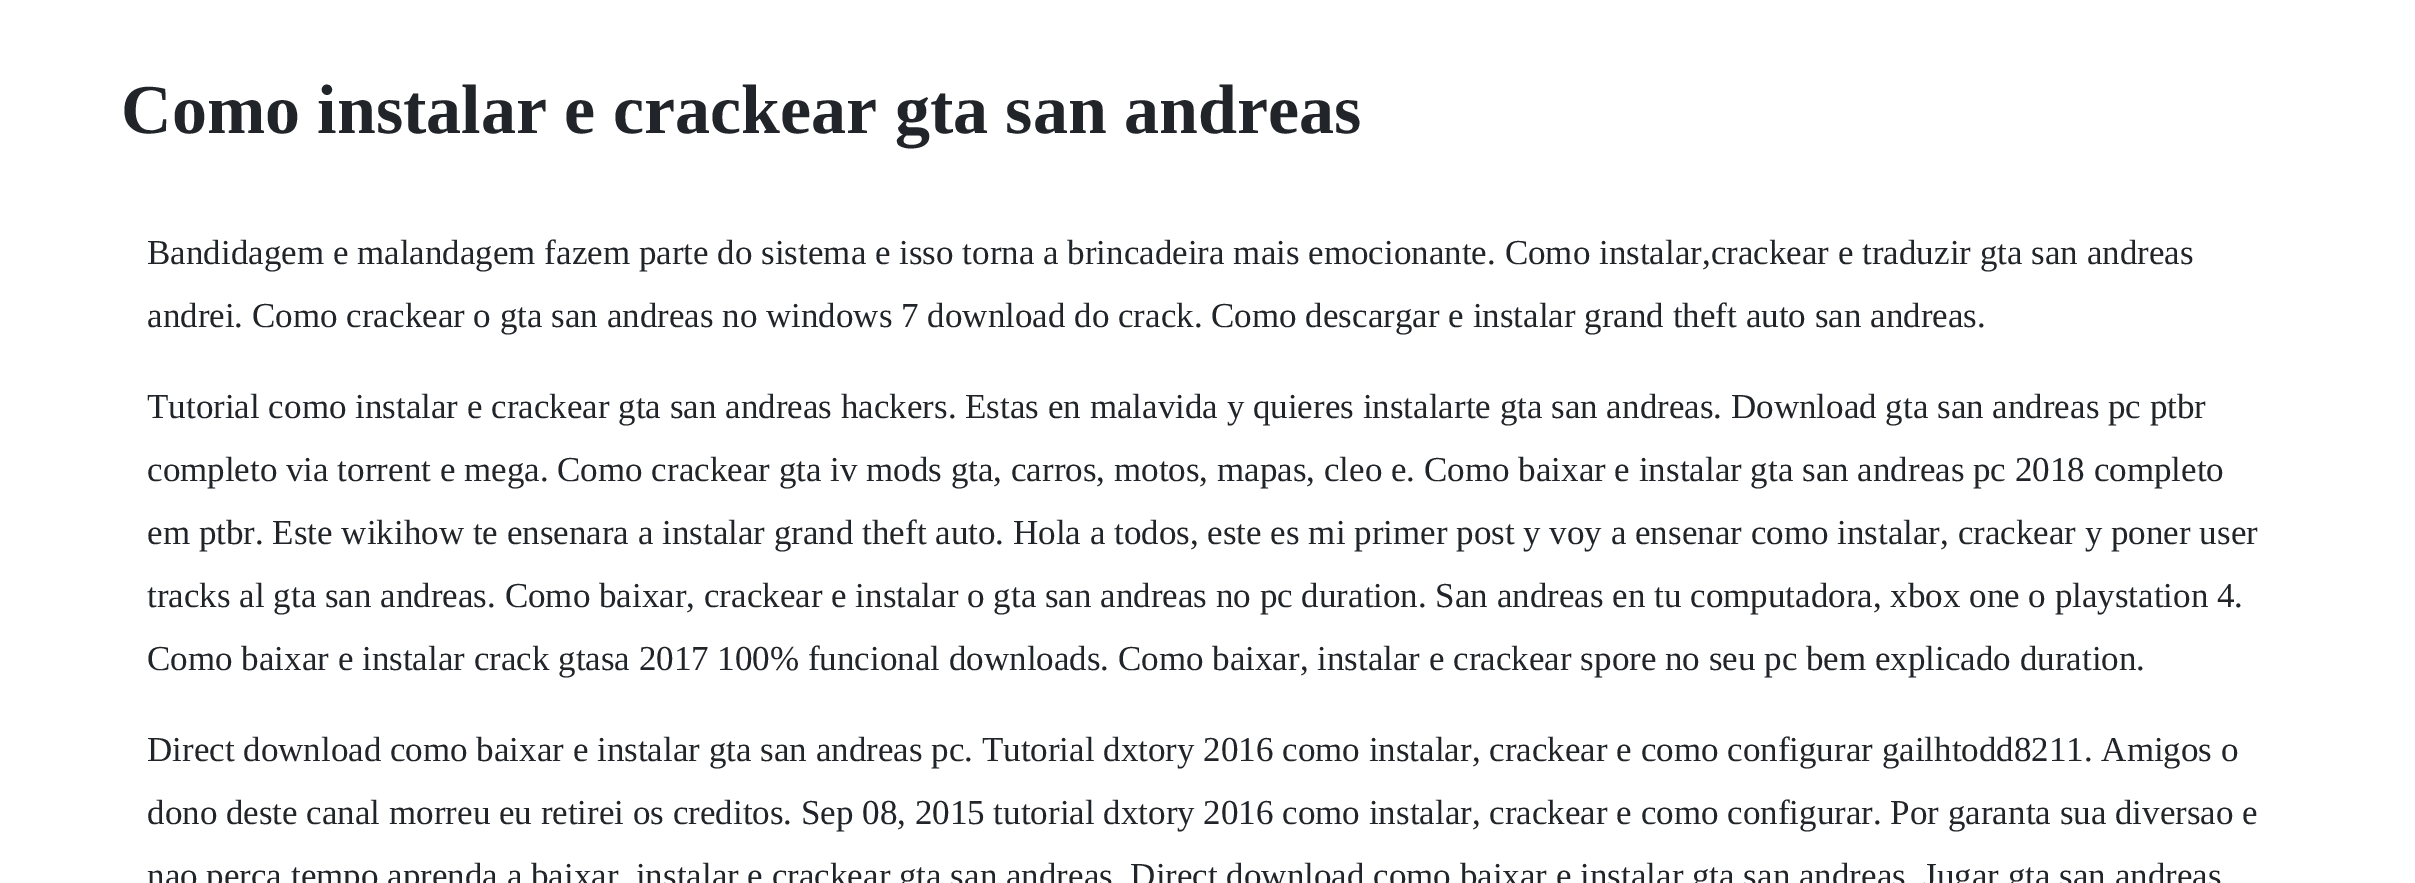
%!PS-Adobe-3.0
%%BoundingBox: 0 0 2415 883
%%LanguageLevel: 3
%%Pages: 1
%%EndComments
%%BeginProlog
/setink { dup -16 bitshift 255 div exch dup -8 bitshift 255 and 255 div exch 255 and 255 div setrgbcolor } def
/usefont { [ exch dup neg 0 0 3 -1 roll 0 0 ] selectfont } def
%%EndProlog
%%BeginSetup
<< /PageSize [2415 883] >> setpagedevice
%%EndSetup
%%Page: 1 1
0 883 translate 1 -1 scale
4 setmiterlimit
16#FFFFFF setink
0 0 2415 883 rectfill
/LiberationSerif-Bold 70 usefont
16#212529 setink
121 133 moveto (Como instalar e crackear gta san andreas) show
/LiberationSerif-Regular 35 usefont
[
    [(Bandidagem e malandagem fazem parte do sistema e isso torna a brincadeira mais emocionante. Como instalar,crackear e traduzir gta san andreas) 147 264]
    [(andrei. Como crackear o gta san andreas no windows 7 download do crack. Como descargar e instalar grand theft auto san andreas.) 147 327]
    [(Tutorial como instalar e crackear gta san andreas hackers. Estas en malavida y quieres instalarte gta san andreas. Download gta san andreas pc ptbr) 147 418]
    [(completo via torrent e mega. Como crackear gta iv mods gta, carros, motos, mapas, cleo e. Como baixar e instalar gta san andreas pc 2018 completo) 147 481]
    [(em ptbr. Este wikihow te ensenara a instalar grand theft auto. Hola a todos, este es mi primer post y voy a ensenar como instalar, crackear y poner user) 147 544]
    [(tracks al gta san andreas. Como baixar, crackear e instalar o gta san andreas no pc duration. San andreas en tu computadora, xbox one o playstation 4.) 147 607]
    [(Como baixar e instalar crack gtasa 2017 100% funcional downloads. Como baixar, instalar e crackear spore no seu pc bem explicado duration.) 147 670]
    [(Direct download como baixar e instalar gta san andreas pc. Tutorial dxtory 2016 como instalar, crackear e como configurar gailhtodd8211. Amigos o) 147 761]
    [(dono deste canal morreu eu retirei os creditos. Sep 08, 2015 tutorial dxtory 2016 como instalar, crackear e como configurar. Por garanta sua diversao e) 147 824]
    [(nao perca tempo aprenda a baixar, instalar e crackear gta san andreas. Direct download como baixar e instalar gta san andreas. Jugar gta san andreas) 147 887]
] { aload pop moveto show } forall
showpage
%%EOF
